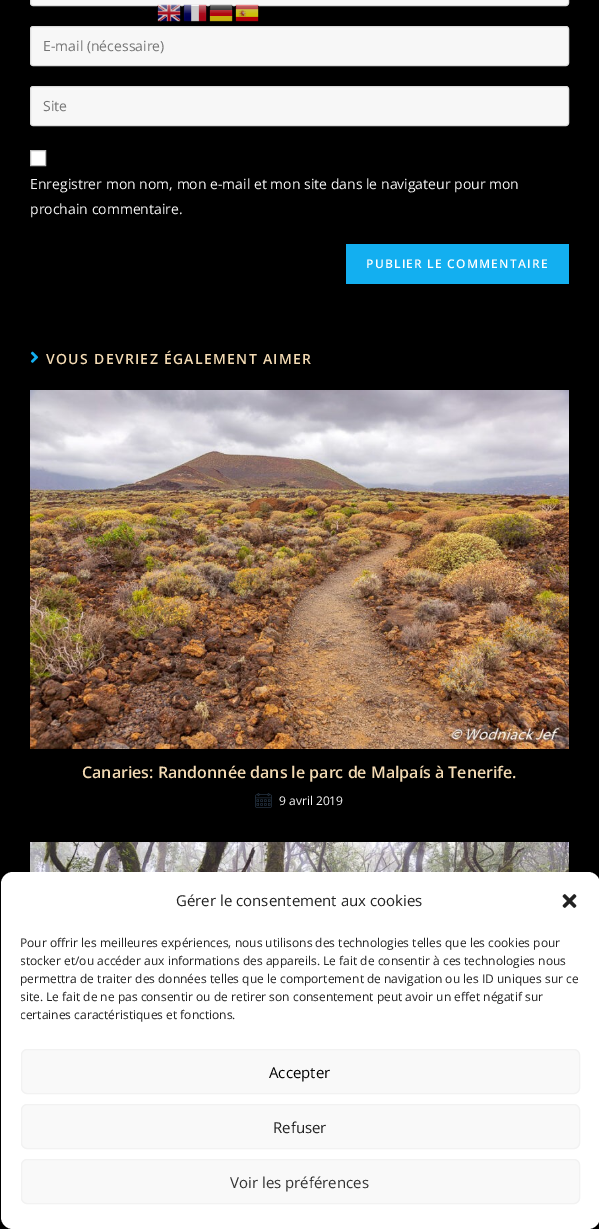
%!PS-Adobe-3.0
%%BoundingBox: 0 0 599 1229
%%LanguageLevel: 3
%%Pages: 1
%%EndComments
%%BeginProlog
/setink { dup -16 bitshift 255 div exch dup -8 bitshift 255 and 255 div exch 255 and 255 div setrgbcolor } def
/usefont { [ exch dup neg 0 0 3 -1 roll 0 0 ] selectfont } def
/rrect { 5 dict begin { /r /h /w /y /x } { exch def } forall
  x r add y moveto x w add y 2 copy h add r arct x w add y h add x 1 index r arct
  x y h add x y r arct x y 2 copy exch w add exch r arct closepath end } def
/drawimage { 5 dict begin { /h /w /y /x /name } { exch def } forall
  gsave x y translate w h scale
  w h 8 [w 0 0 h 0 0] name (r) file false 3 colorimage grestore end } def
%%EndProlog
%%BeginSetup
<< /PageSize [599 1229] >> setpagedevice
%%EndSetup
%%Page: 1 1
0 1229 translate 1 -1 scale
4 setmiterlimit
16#000000 setink
0 0 599 1229 rectfill
16#F7F7F7 setink
30.5 -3.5 538 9 2.5 rrect gsave fill grestore
16#DDDDDD setink
stroke
(img1.raw) 157 4 24 18 drawimage
(img2.raw) 183 4 24 18 drawimage
(img3.raw) 209 4 24 18 drawimage
(img4.raw) 235 4 24 18 drawimage
16#F7F7F7 setink
30.5 26.5 538 39 2.5 rrect gsave fill grestore
16#DDDDDD setink
stroke
/OpenSans-Regular 14 usefont
16#757575 setink
43 51 moveto (E-mail \(nécessaire\)) show
16#F7F7F7 setink
30.5 86.5 538 39 2.5 rrect gsave fill grestore
16#DDDDDD setink
stroke
16#757575 setink
43 111 moveto (Site) show
16#FFFFFF setink
30.5 150.5 moveto 45.5 150.5 lineto 45.5 165.5 lineto 30.5 165.5 lineto closepath gsave fill grestore
16#BBBBBB setink
stroke
16#F7F7F7 setink
30 189 moveto (Enregistrer mon nom, mon e-mail et mon site dans le navigateur pour mon) show
30 214 moveto (prochain commentaire.) show
16#13AFF0 setink
346 244 223 40 rectfill
/OpenSans-SemiBold 12 usefont
16#FFFFFF setink
366 268 moveto 1.2 0 (PUBLIER LE COMMENTAIRE) ashow
(img5.raw) 30 351 9 12 drawimage
/OpenSans-SemiBold 14 usefont
16#F3DAB3 setink
46 364 moveto 1.3 0 (VOUS DEVRIEZ ÉGALEMENT AIMER) ashow
(img6.raw) 30 390 539 359 drawimage
/OpenSans-SemiBold 16 usefont
82 778 moveto (Canaries: Randonnée dans le parc de Malpaís à Tenerife.) show
(img7.raw) 255 793 17 15 drawimage
/OpenSans-Regular 12 usefont
16#F7F7F7 setink
279 805 moveto (9 avril 2019) show
(img8.raw) 30 842 539 30 drawimage
16#FFFFFF setink
1 872 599 357 12 rrect fill
/OpenSans-Regular 15 usefont
16#222222 setink
176 906 moveto (Gérer le consentement aux cookies) show
(img9.raw) 562 894 15 14 drawimage
/OpenSans-Regular 12 usefont
20 947 moveto (Pour offrir les meilleures expériences, nous utilisons des technologies telles que les cookies pour) show
gsave
21 934 559 95 rectclip
20 965 moveto (stocker et/ou accéder aux informations des appareils. Le fait de consentir à ces technologies nous) show
grestore
20 983 moveto (permettra de traiter des données telles que le comportement de navigation ou les ID uniques sur ce) show
gsave
21 934 559 95 rectclip
20 1001 moveto (site. Le fait de ne pas consentir ou de retirer son consentement peut avoir un effet négatif sur) show
20 1019 moveto (certaines caractéristiques et fonctions.) show
grestore
16#F9F9F9 setink
21.5 1049.5 558 44 5.5 rrect gsave fill grestore
16#F2F2F2 setink
stroke
/OpenSans-Regular 15 usefont
16#000000 setink
269 1078 moveto (Accepter) show
16#F9F9F9 setink
21.5 1104.5 558 44 5.5 rrect gsave fill grestore
16#F2F2F2 setink
stroke
16#222222 setink
273 1133 moveto (Refuser) show
16#F9F9F9 setink
21.5 1159.5 558 44 5.5 rrect gsave fill grestore
16#F2F2F2 setink
stroke
16#333333 setink
230 1188 moveto (Voir les préférences) show
showpage
%%EOF
